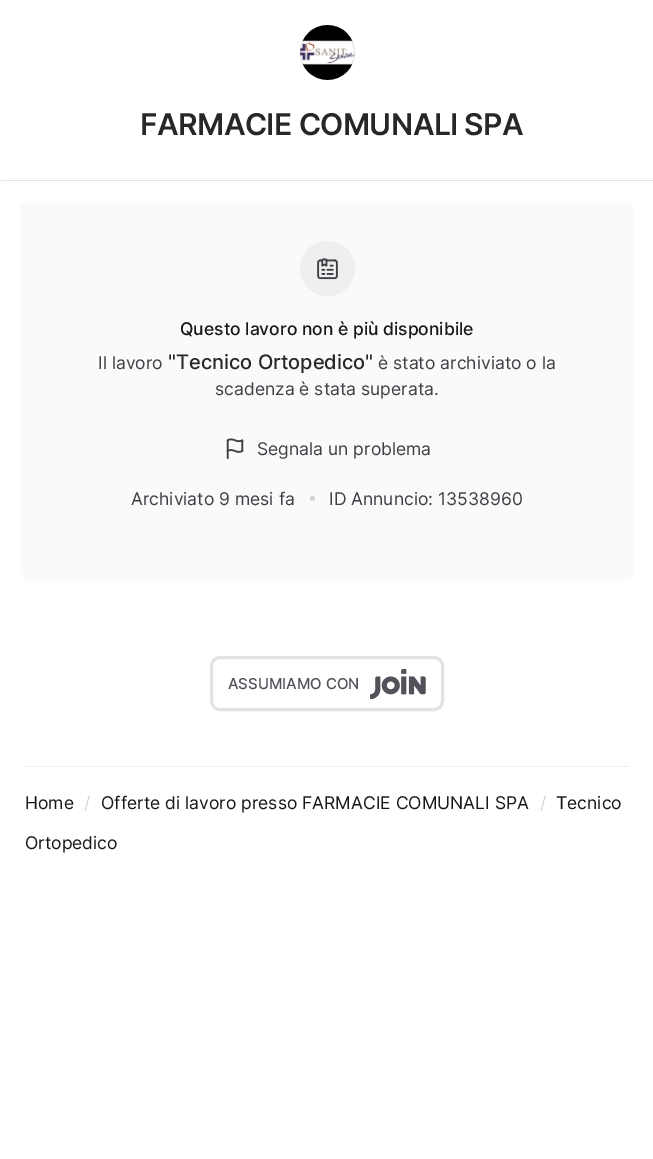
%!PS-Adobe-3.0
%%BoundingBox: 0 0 653 1159
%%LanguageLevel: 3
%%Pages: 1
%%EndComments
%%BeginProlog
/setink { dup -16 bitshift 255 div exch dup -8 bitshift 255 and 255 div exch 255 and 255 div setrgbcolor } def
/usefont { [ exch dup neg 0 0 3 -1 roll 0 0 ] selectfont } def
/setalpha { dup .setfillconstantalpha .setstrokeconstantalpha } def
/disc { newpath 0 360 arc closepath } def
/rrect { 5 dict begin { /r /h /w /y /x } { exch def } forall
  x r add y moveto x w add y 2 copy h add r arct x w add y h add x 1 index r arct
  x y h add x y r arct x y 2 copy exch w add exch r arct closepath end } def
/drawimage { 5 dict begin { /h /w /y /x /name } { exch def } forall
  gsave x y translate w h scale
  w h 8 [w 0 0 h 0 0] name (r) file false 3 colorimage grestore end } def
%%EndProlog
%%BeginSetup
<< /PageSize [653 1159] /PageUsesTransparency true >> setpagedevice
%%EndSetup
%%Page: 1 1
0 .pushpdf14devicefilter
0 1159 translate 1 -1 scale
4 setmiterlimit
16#FFFFFF setink
0 0 653 1159 rectfill
(img1.raw) 300 25 55 55 drawimage
0.1 setalpha
16#000000 setink
327.5 52.5 27 disc stroke
/Inter-SemiBold 30 usefont
1 setalpha
16#27272A setink
140 135 moveto -0.6 0 (FARMACIE COMUNALI SPA) ashow
16#E3E3E5 setink
1 180 652 1 rectfill
16#FAFAFA setink
20 201 614 380 10 rrect fill
16#EFEFF0 setink
327.5 268.5 27.5 disc fill
(img2.raw) 317 258 21 22 drawimage
/Inter-Medium 17.5 usefont
16#18181B setink
180 335 moveto (Questo lavoro non è più disponibile) show
/Inter-Regular 17.5 usefont
16#3F3F46 setink
98 369 moveto (Il lavoro) show
/Inter-Medium 20 usefont
16#27272A setink
168 369 moveto ("Tecnico Ortopedico") show
/Inter-Regular 17.5 usefont
16#3F3F46 setink
378 369 moveto (è stato archiviato o la) show
215 395 moveto (scadenza è stata superata.) show
(img3.raw) 226 438 18 22 drawimage
257 455 moveto (Segnala un problema) show
131 505 moveto (Archiviato 9 mesi fa) show
16#D4D4D8 setink
312.5 498.5 2.5 disc fill
16#3F3F46 setink
329 505 moveto (ID Annuncio: 13538960) show
16#E3E3E5 setink
3 setlinewidth
211.5 657.5 231 52 8.5 rrect stroke
/Inter-Medium 15 usefont
16#52525B setink
228 689 moveto (ASSUMIAMO CON) show
(img4.raw) 370 669 56 30 drawimage
16#EFEFF0 setink
25 766 604 1 rectfill
/Inter-Regular 17.5 usefont
16#18181B setink
25 809 moveto (Home) show
16#D4D4D8 setink
84 809 moveto (/) show
16#18181B setink
101 809 moveto (Offerte di lavoro presso FARMACIE COMUNALI SPA) show
16#D4D4D8 setink
540 809 moveto (/) show
16#18181B setink
556 809 moveto (Tecnico) show
25 849 moveto (Ortopedico) show
.poppdf14devicefilter showpage
%%EOF
